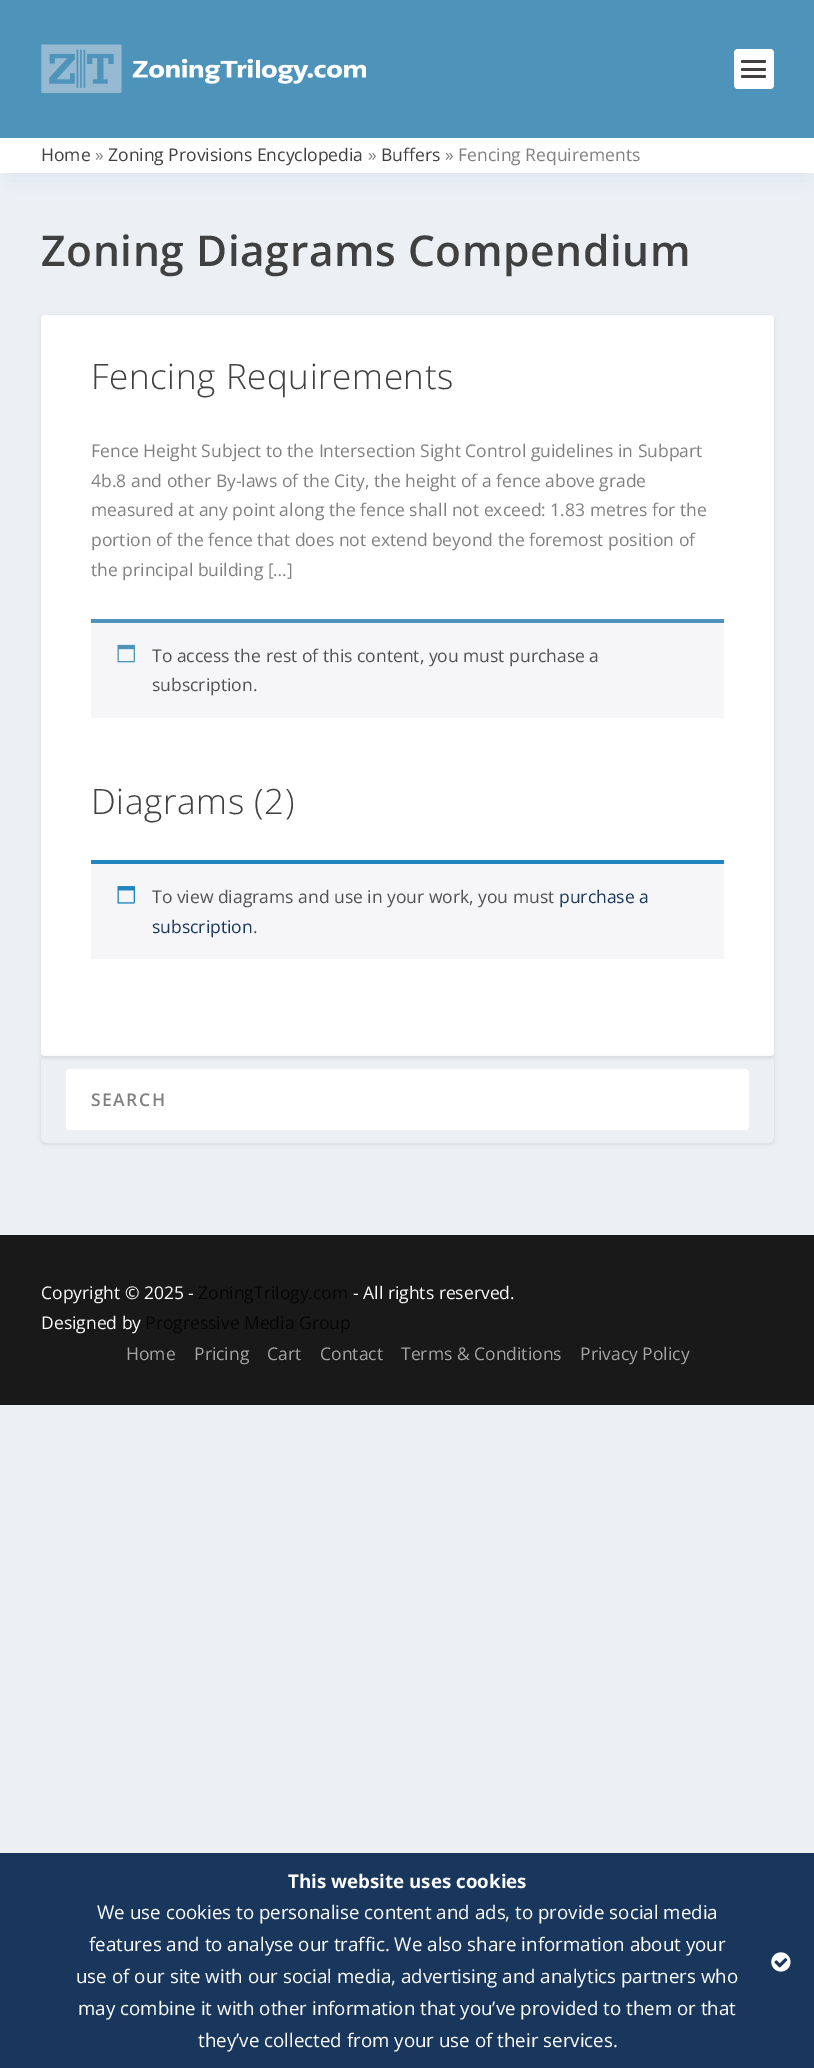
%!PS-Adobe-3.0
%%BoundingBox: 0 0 814 2068
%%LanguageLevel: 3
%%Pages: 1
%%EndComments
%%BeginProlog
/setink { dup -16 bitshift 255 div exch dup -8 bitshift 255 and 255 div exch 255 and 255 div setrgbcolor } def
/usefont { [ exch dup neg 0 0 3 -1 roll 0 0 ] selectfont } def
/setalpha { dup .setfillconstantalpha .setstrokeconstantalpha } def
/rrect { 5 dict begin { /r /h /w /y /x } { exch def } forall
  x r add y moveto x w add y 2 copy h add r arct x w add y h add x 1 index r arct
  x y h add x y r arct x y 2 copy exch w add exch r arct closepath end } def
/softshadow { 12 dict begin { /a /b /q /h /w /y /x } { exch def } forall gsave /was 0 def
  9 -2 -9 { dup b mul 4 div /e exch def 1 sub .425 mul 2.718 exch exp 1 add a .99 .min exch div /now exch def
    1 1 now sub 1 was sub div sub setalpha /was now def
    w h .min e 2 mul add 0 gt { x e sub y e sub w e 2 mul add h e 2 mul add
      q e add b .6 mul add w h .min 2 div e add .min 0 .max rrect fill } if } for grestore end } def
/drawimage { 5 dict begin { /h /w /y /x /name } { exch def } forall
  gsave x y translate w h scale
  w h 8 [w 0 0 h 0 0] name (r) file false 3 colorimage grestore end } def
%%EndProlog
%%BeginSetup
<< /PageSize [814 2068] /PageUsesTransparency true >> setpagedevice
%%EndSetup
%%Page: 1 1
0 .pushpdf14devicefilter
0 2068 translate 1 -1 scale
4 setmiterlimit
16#ECF0F5 setink
0 0 814 2068 rectfill
16#4E94BA setink
8 160 800 20 0 11 0.1 softshadow
0 0 814 138 rectfill
(img1.raw) 41 44 325 50 drawimage
16#FFFFFF setink
734 49 40 40 4 rrect fill
16#404040 setink
741 60 25 3 1.5 rrect fill
741 68 25 3 1.5 rrect fill
741 75 25 3 1.5 rrect fill
16#FFFFFF setink
0 138 814 35 rectfill
/OpenSans-Regular 17.5 usefont
16#404040 setink
41 161 moveto (Home) show
16#808080 setink
95 161 moveto (») show
16#404040 setink
108 161 moveto (Zoning Provisions Encyclopedia) show
16#808080 setink
368 161 moveto (») show
16#404040 setink
381 161 moveto (Buffers) show
16#808080 setink
445 161 moveto (» Fencing Requirements) show
/OpenSans-SemiBold 42.5 usefont
16#404040 setink
41 266 moveto 0.6 0 (Zoning Diagrams Compendium) ashow
16#000000 setink
41 316 733 742 4 2 0.1 softshadow
16#FFFFFF setink
41 315 733 741 4 rrect fill
/OpenSans-Light 35 usefont
16#404040 setink
91 389 moveto 0.6 0 (Fencing Requirements) ashow
/OpenSans-Regular 17.5 usefont
16#808080 setink
[
    [(Fence Height Subject to the Intersection Sight Control guidelines in Subpart) 91 457]
    [(4b.8 and other By-laws of the City, the height of a fence above grade) 91 487]
    [(measured at any point along the fence shall not exceed: 1.83 metres for the) 91 516]
    [(portion of the fence that does not extend beyond the foremost position of) 91 546]
    [(the principal building […]) 91 576]
] { aload pop moveto show } forall
16#F6F5F8 setink
91 623 633 95 rectfill
16#4E94BA setink
91 619 633 4 rectfill
(img2.raw) 117 644 18 19 drawimage
16#515151 setink
152 662 moveto (To access the rest of this content, you must purchase a) show
152 691 moveto (subscription.) show
/OpenSans-Light 35 usefont
16#404040 setink
91 814 moveto 0.6 0 (Diagrams \(2\)) ashow
16#F6F5F8 setink
91 864 633 95 rectfill
16#1E85BE setink
91 860 633 4 rectfill
(img3.raw) 117 886 18 18 drawimage
/OpenSans-Regular 17.5 usefont
16#515151 setink
152 903 moveto (To view diagrams and use in your work, you must) show
16#19375D setink
559 903 moveto (purchase a) show
152 933 moveto (subscription) show
16#515151 setink
253 933 moveto (.) show
gsave
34 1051 moveto 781 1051 lineto 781 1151 lineto 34 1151 lineto closepath 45 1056 moveto 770 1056 lineto 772 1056 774 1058 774 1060 curveto 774 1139 lineto 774 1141 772 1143 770 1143 curveto 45 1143 lineto 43 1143 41 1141 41 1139 curveto 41 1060 lineto 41 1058 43 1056 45 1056 curveto closepath eoclip newpath
16#000000 setink
41 1058 733 86 4 2 0.1 softshadow
grestore
16#FFFFFF setink
66 1069 683 61 4 rrect fill
/OpenSans-SemiBold 17.5 usefont
16#808080 setink
91 1106 moveto 1.5 0 (SEARCH) ashow
16#191919 setink
0 1235 814 170 rectfill
/OpenSans-Regular 17.5 usefont
16#FFFFFF setink
41 1299 moveto (Copyright © 2025 -) show
16#060606 setink
198 1299 moveto (ZoningTrilogy.com) show
16#FFFFFF setink
353 1299 moveto (- All rights reserved.) show
41 1329 moveto (Designed by) show
16#060606 setink
145 1329 moveto (Progressive Media Group) show
16#A3A3A3 setink
[
    [(Home) 126 1360]
    [(Pricing) 194 1360]
    [(Cart) 267 1360]
    [(Contact) 320 1360]
    [(Terms & Conditions) 401 1360]
    [(Privacy Policy) 580 1360]
] { aload pop moveto show } forall
16#19375D setink
0 1853 814 215 rectfill
/OpenSans-Bold 18.75 usefont
16#FFFFFF setink
288 1888 moveto (This website uses cookies) show
/OpenSans-Regular 18.75 usefont
[
    [(We use cookies to personalise content and ads, to provide social media) 97 1919]
    [(features and to analyse our traffic. We also share information about your) 89 1951]
    [(use of our site with our social media, advertising and analytics partners who) 76 1983]
    [(may combine it with other information that you’ve provided to them or that) 78 2015]
    [(they’ve collected from your use of their services.) 198 2047]
] { aload pop moveto show } forall
(img4.raw) 771 1952 20 20 drawimage
.poppdf14devicefilter showpage
%%EOF
